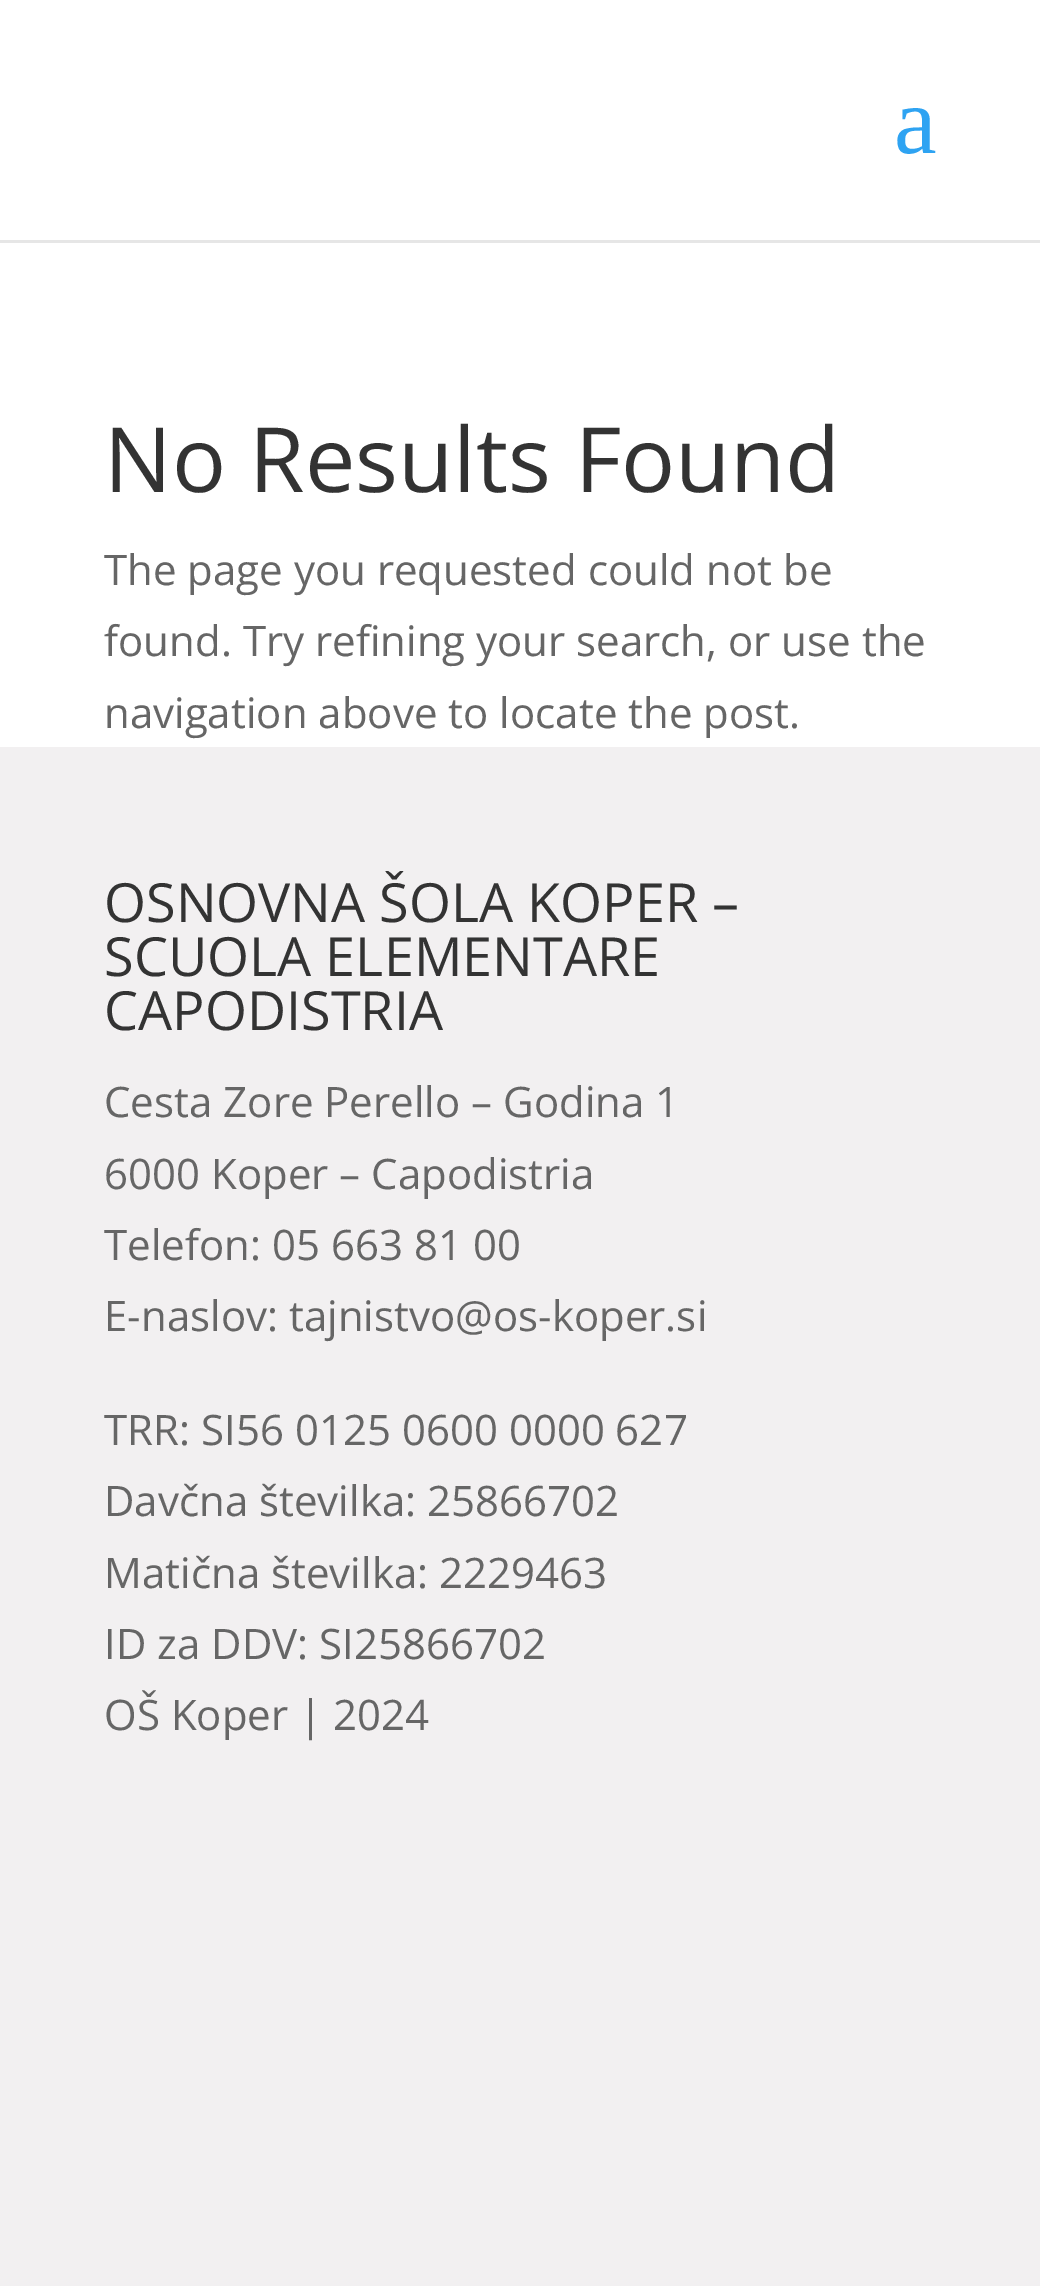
%!PS-Adobe-3.0
%%BoundingBox: 0 0 1040 2286
%%LanguageLevel: 3
%%Pages: 1
%%EndComments
%%BeginProlog
/setink { dup -16 bitshift 255 div exch dup -8 bitshift 255 and 255 div exch 255 and 255 div setrgbcolor } def
/usefont { [ exch dup neg 0 0 3 -1 roll 0 0 ] selectfont } def
%%EndProlog
%%BeginSetup
<< /PageSize [1040 2286] >> setpagedevice
%%EndSetup
%%Page: 1 1
0 2286 translate 1 -1 scale
4 setmiterlimit
16#F2F0F1 setink
0 0 1040 2286 rectfill
16#E6E6E6 setink
0 240 1040 3 rectfill
16#FFFFFF setink
0 0 1040 240 rectfill
/LiberationSerif-Regular 96 usefont
16#2EA3F2 setink
894 153 moveto (a) show
16#FFFFFF setink
0 243 1040 504 rectfill
/OpenSans-Regular 90 usefont
16#333333 setink
104 492 moveto (No Results Found) show
/OpenSans-Regular 42 usefont
16#666666 setink
[
    [(The page you requested could not be) 104 585]
    [(found. Try refining your search, or use the) 104 656]
    [(navigation above to locate the post.) 104 728]
] { aload pop moveto show } forall
/OpenSans-Regular 54 usefont
16#333333 setink
[
    [(OSNOVNA ŠOLA KOPER –) 104 922]
    [(SCUOLA ELEMENTARE) 104 976]
    [(CAPODISTRIA) 104 1030]
] { aload pop moveto show } forall
/OpenSans-Regular 42 usefont
16#666666 setink
[
    [(Cesta Zore Perello – Godina 1) 104 1117]
    [(6000 Koper – Capodistria) 104 1189]
    [(Telefon: 05 663 81 00) 104 1260]
    [(E-naslov: tajnistvo@os-koper.si) 104 1331]
    [(TRR: SI56 0125 0600 0000 627) 104 1445]
    [(Davčna številka: 25866702) 104 1516]
    [(Matična številka: 2229463) 104 1588]
    [(ID za DDV: SI25866702) 104 1659]
    [(OŠ Koper | 2024) 104 1730]
] { aload pop moveto show } forall
showpage
%%EOF
